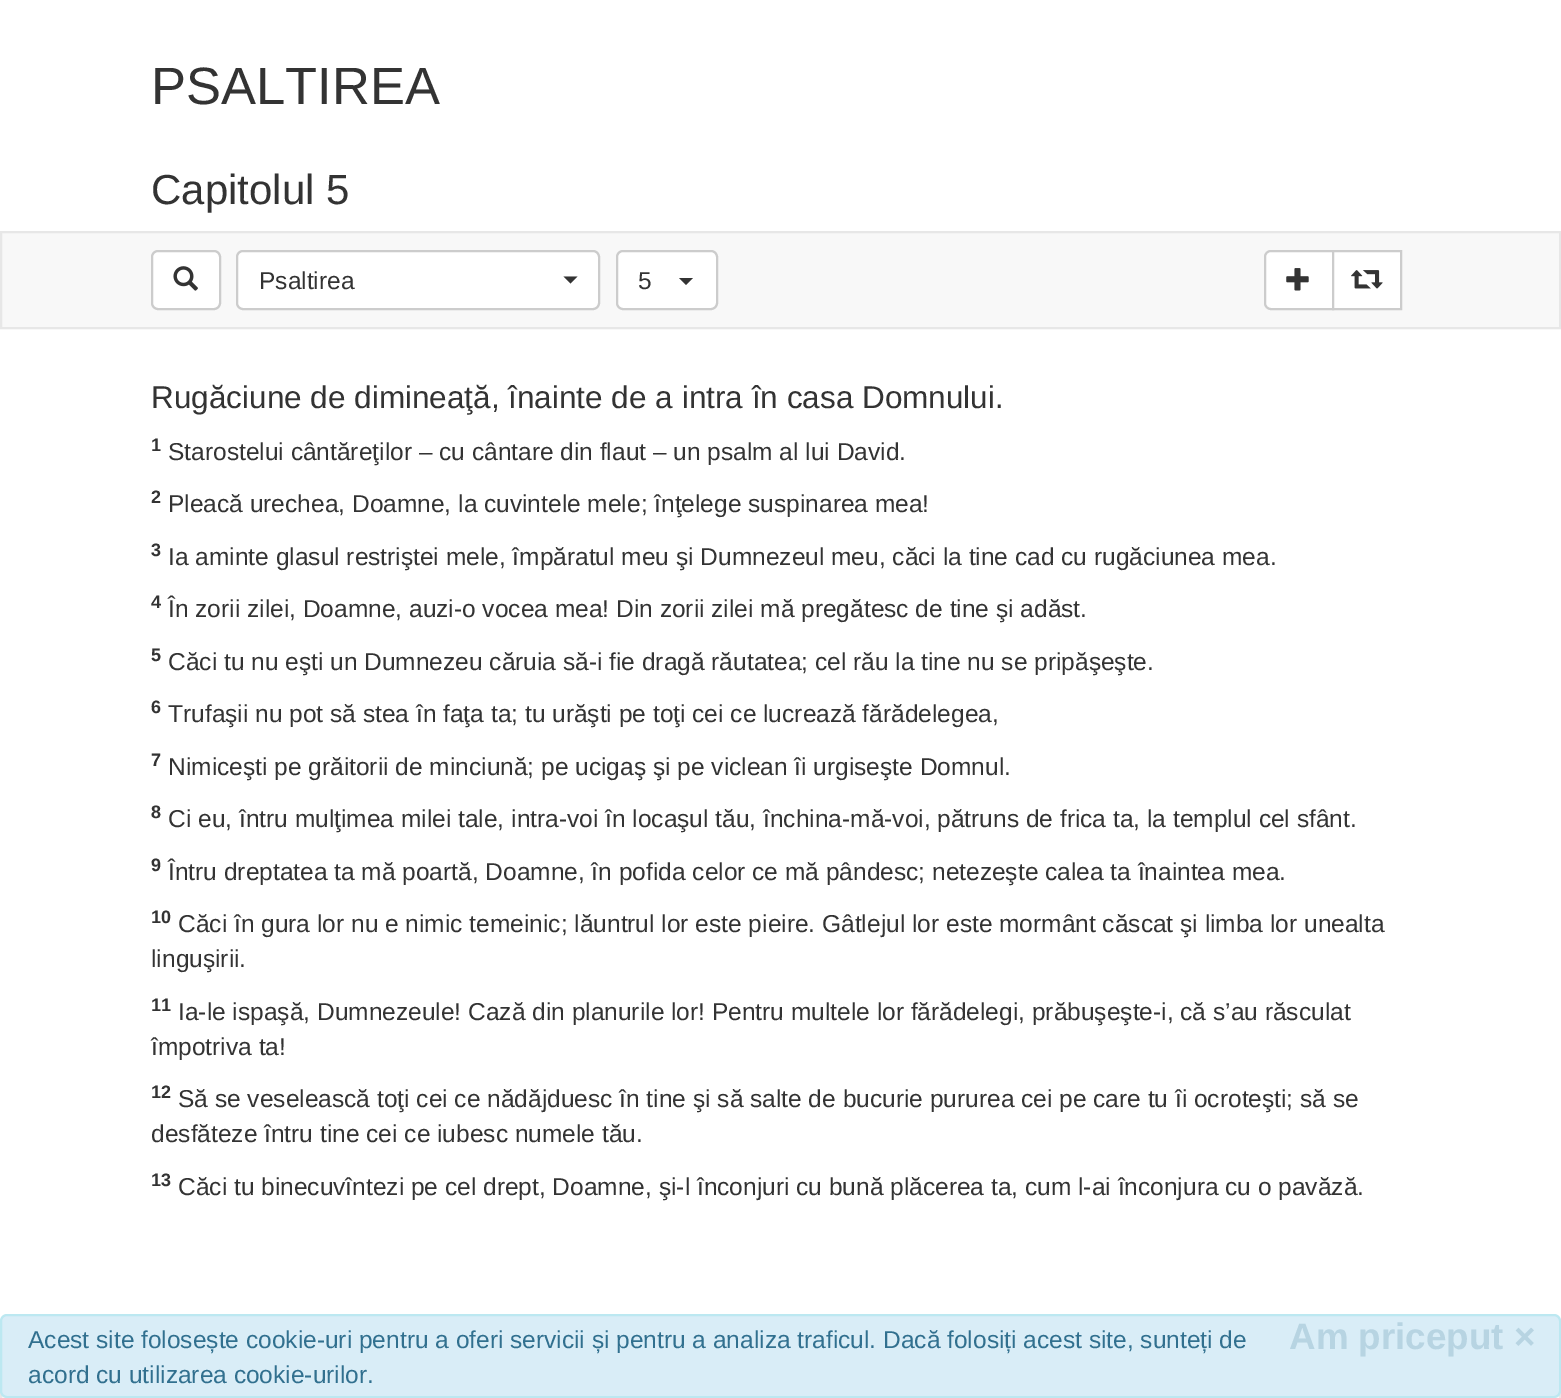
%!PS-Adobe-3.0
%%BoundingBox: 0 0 1561 1398
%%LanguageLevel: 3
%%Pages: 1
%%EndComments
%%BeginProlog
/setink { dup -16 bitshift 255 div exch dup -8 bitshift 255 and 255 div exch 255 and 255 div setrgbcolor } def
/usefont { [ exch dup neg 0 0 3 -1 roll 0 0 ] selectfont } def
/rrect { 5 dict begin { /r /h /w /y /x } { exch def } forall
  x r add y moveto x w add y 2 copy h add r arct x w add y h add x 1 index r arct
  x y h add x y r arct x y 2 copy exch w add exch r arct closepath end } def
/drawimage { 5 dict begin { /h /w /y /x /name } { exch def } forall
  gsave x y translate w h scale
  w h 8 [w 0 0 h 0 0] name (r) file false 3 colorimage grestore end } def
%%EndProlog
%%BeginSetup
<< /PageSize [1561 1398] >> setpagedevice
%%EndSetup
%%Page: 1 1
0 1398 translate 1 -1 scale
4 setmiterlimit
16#FFFFFF setink
0 0 1561 1398 rectfill
/LiberationSans-Regular 52.5 usefont
16#333333 setink
151 104 moveto (PSALTIREA) show
/LiberationSans-Regular 42 usefont
151 204 moveto (Capitolul 5) show
16#F8F8F8 setink
1 232 moveto 1560 232 lineto 1560 328 lineto 1 328 lineto closepath gsave fill grestore
16#E7E7E7 setink
2 setlinewidth
stroke
16#FFFFFF setink
152 251 68 58 6 rrect gsave fill grestore
16#CCCCCC setink
stroke
(img1.raw) 173 266 25 25 drawimage
16#FFFFFF setink
237 251 362 58 6 rrect gsave fill grestore
16#CCCCCC setink
stroke
/LiberationSans-Regular 24.5 usefont
16#333333 setink
259 289 moveto (Psaltirea) show
563.5 276.5 moveto 577.5 276.5 lineto 570.5 283.5 lineto closepath fill
16#FFFFFF setink
617 251 100 58 6 rrect gsave fill grestore
16#CCCCCC setink
stroke
16#333333 setink
638 289 moveto (5) show
679 278 moveto 693 278 lineto 686 285 lineto closepath fill
16#FFFFFF setink
1271 251 moveto 1333 251 lineto 1333 309 lineto 1271 309 lineto 1267.5 309 1265 306.5 1265 303 curveto 1265 257 lineto 1265 253.5 1267.5 251 1271 251 curveto closepath gsave fill grestore
16#CCCCCC setink
stroke
(img2.raw) 1286 268 23 23 drawimage
16#FFFFFF setink
1333 251 moveto 1401 251 lineto 1401 309 lineto 1333 309 lineto closepath gsave fill grestore
16#CCCCCC setink
stroke
(img3.raw) 1351 270 32 19 drawimage
/LiberationSans-Regular 31.5 usefont
16#333333 setink
151 408 moveto (Rugăciune de dimineaţă, înainte de a intra în casa Domnului.) show
/LiberationSans-Bold 18 usefont
151 451 moveto (1) show
/LiberationSans-Regular 24.5 usefont
168 460 moveto (Starostelui cântăreţilor – cu cântare din flaut – un psalm al lui David.) show
/LiberationSans-Bold 18 usefont
151 503 moveto (2) show
/LiberationSans-Regular 24.5 usefont
168 512 moveto (Pleacă urechea, Doamne, la cuvintele mele; înţelege suspinarea mea!) show
/LiberationSans-Bold 18 usefont
151 556 moveto (3) show
/LiberationSans-Regular 24.5 usefont
168 565 moveto (Ia aminte glasul restriştei mele, împăratul meu şi Dumnezeul meu, căci la tine cad cu rugăciunea mea.) show
/LiberationSans-Bold 18 usefont
151 608 moveto (4) show
/LiberationSans-Regular 24.5 usefont
168 617 moveto (În zorii zilei, Doamne, auzi-o vocea mea! Din zorii zilei mă pregătesc de tine şi adăst.) show
/LiberationSans-Bold 18 usefont
151 661 moveto (5) show
/LiberationSans-Regular 24.5 usefont
168 670 moveto (Căci tu nu eşti un Dumnezeu căruia să-i fie dragă răutatea; cel rău la tine nu se pripăşeşte.) show
/LiberationSans-Bold 18 usefont
151 713 moveto (6) show
/LiberationSans-Regular 24.5 usefont
168 722 moveto (Trufaşii nu pot să stea în faţa ta; tu urăşti pe toţi cei ce lucrează fărădelegea,) show
/LiberationSans-Bold 18 usefont
151 766 moveto (7) show
/LiberationSans-Regular 24.5 usefont
168 775 moveto (Nimiceşti pe grăitorii de minciună; pe ucigaş şi pe viclean îi urgiseşte Domnul.) show
/LiberationSans-Bold 18 usefont
151 818 moveto (8) show
/LiberationSans-Regular 24.5 usefont
168 827 moveto (Ci eu, întru mulţimea milei tale, intra-voi în locaşul tău, închina-mă-voi, pătruns de frica ta, la templul cel sfânt.) show
/LiberationSans-Bold 18 usefont
151 871 moveto (9) show
/LiberationSans-Regular 24.5 usefont
168 880 moveto (Întru dreptatea ta mă poartă, Doamne, în pofida celor ce mă pândesc; netezeşte calea ta înaintea mea.) show
/LiberationSans-Bold 18 usefont
151 923 moveto (10) show
/LiberationSans-Regular 24.5 usefont
178 932 moveto (Căci în gura lor nu e nimic temeinic; lăuntrul lor este pieire. Gâtlejul lor este mormânt căscat şi limba lor unealta) show
151 967 moveto (linguşirii.) show
/LiberationSans-Bold 18 usefont
151 1011 moveto (11) show
/LiberationSans-Regular 24.5 usefont
178 1020 moveto (Ia-le ispaşă, Dumnezeule! Cază din planurile lor! Pentru multele lor fărădelegi, prăbuşeşte-i, că s’au răsculat) show
151 1055 moveto (împotriva ta!) show
/LiberationSans-Bold 18 usefont
151 1098 moveto (12) show
/LiberationSans-Regular 24.5 usefont
178 1107 moveto (Să se veselească toţi cei ce nădăjduesc în tine şi să salte de bucurie pururea cei pe care tu îi ocroteşti; să se) show
151 1142 moveto (desfăteze întru tine cei ce iubesc numele tău.) show
/LiberationSans-Bold 18 usefont
151 1186 moveto (13) show
/LiberationSans-Regular 24.5 usefont
178 1195 moveto (Căci tu binecuvîntezi pe cel drept, Doamne, şi-l înconjuri cu bună plăcerea ta, cum l-ai înconjura cu o pavăză.) show
16#F8F8F8 setink
2 1396 1557 2 rectfill
16#E7E7E7 setink
1 1321 1559 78 rectstroke
16#D9EDF7 setink
1 1315 1559 82 6 rrect gsave fill grestore
16#BCE8F1 setink
stroke
16#31708F setink
28 1348 moveto (Acest site folosește cookie-uri pentru a oferi servicii și pentru a analiza traficul. Dacă folosiți acest site, sunteți de) show
/LiberationSans-Bold 36.75 usefont
16#B7D4E2 setink
1289 1349 moveto (Am priceput ×) show
/LiberationSans-Regular 24.5 usefont
16#31708F setink
28 1383 moveto (acord cu utilizarea cookie-urilor.) show
showpage
%%EOF
